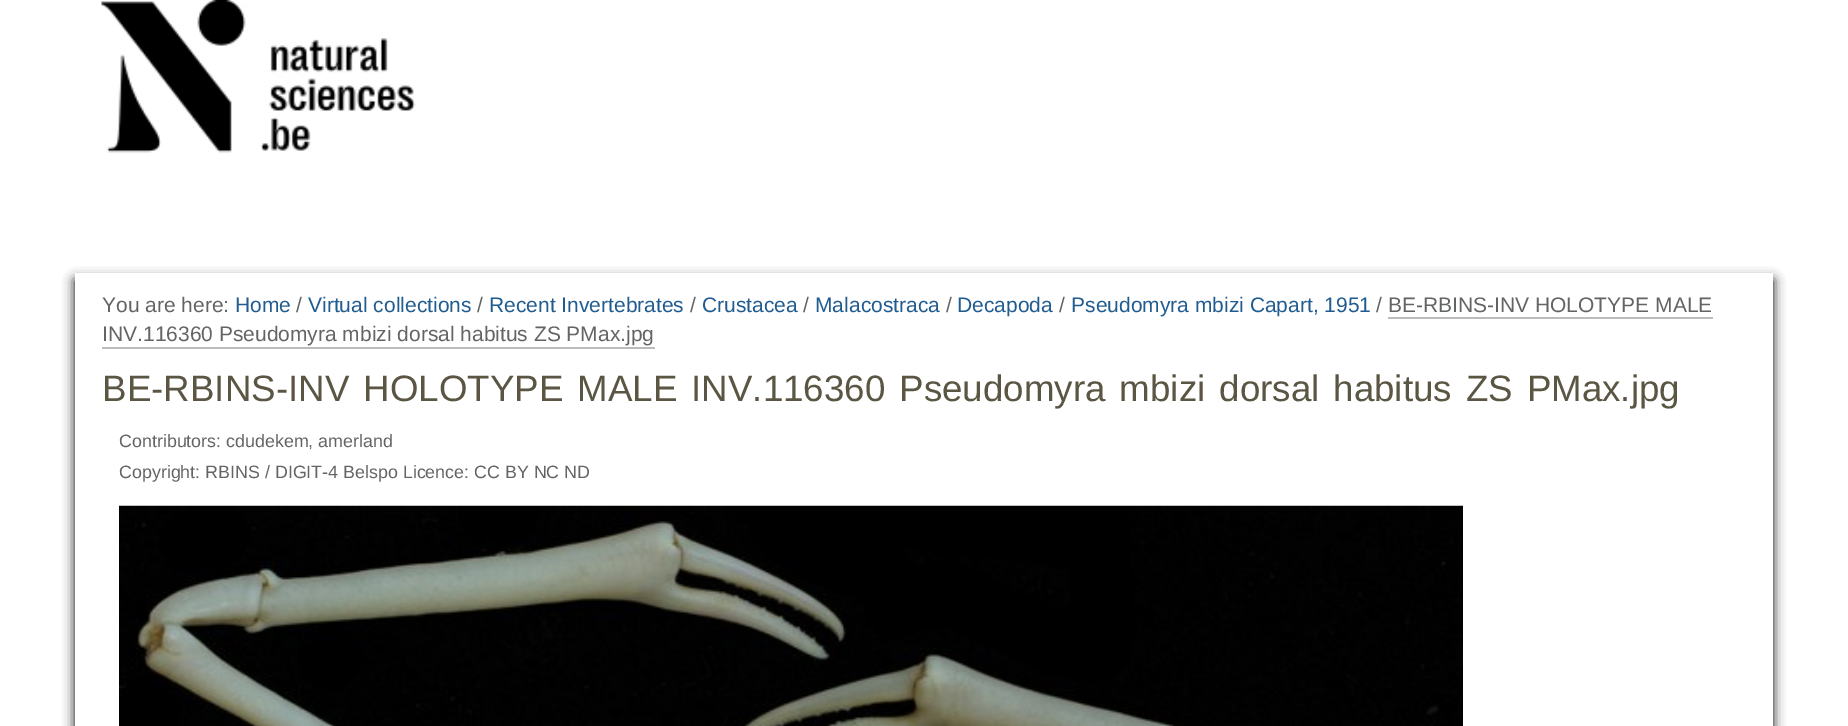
%!PS-Adobe-3.0
%%BoundingBox: 0 0 1848 726
%%LanguageLevel: 3
%%Pages: 1
%%EndComments
%%BeginProlog
/setink { dup -16 bitshift 255 div exch dup -8 bitshift 255 and 255 div exch 255 and 255 div setrgbcolor } def
/usefont { [ exch dup neg 0 0 3 -1 roll 0 0 ] selectfont } def
/setalpha { dup .setfillconstantalpha .setstrokeconstantalpha } def
/rrect { 5 dict begin { /r /h /w /y /x } { exch def } forall
  x r add y moveto x w add y 2 copy h add r arct x w add y h add x 1 index r arct
  x y h add x y r arct x y 2 copy exch w add exch r arct closepath end } def
/softshadow { 12 dict begin { /a /b /q /h /w /y /x } { exch def } forall gsave /was 0 def
  9 -2 -9 { dup b mul 4 div /e exch def 1 sub .425 mul 2.718 exch exp 1 add a .99 .min exch div /now exch def
    1 1 now sub 1 was sub div sub setalpha /was now def
    w h .min e 2 mul add 0 gt { x e sub y e sub w e 2 mul add h e 2 mul add
      q e add b .6 mul add w h .min 2 div e add .min 0 .max rrect fill } if } for grestore end } def
/drawimage { 5 dict begin { /h /w /y /x /name } { exch def } forall
  gsave x y translate w h scale
  w h 8 [w 0 0 h 0 0] name (r) file false 3 colorimage grestore end } def
%%EndProlog
%%BeginSetup
<< /PageSize [1848 726] /PageUsesTransparency true >> setpagedevice
%%EndSetup
%%Page: 1 1
0 .pushpdf14devicefilter
0 726 translate 1 -1 scale
4 setmiterlimit
16#FFFFFF setink
0 0 1848 726 rectfill
(img1.raw) 101 0 315 153 drawimage
16#000000 setink
75 280 1698 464 0 6 1 softshadow
16#FFFFFF setink
75 273 1698 453 rectfill
/LiberationSans-Regular 21 usefont
16#636466 setink
102 312 moveto (You are here:) show
16#205C90 setink
235 312 moveto (Home) show
16#636466 setink
296 312 moveto (/) show
16#205C90 setink
308 312 moveto (Virtual collections) show
16#636466 setink
477 312 moveto (/) show
16#205C90 setink
489 312 moveto (Recent Invertebrates) show
16#636466 setink
690 312 moveto (/) show
16#205C90 setink
702 312 moveto (Crustacea) show
16#636466 setink
803 312 moveto (/) show
16#205C90 setink
815 312 moveto (Malacostraca) show
16#636466 setink
946 312 moveto (/) show
16#205C90 setink
957 312 moveto (Decapoda) show
16#636466 setink
1059 312 moveto (/) show
16#205C90 setink
1071 312 moveto (Pseudomyra mbizi Capart, 1951) show
16#636466 setink
1376 312 moveto (/) show
1388 312 moveto (BE-RBINS-INV HOLOTYPE MALE) show
16#BBBBBB setink
1388 317 325 2 rectfill
16#636466 setink
102 341 moveto (INV.116360 Pseudomyra mbizi dorsal habitus ZS PMax.jpg) show
16#BBBBBB setink
102 347 553 2 rectfill
/LiberationSans-Regular 36.75 usefont
16#5B5644 setink
102 401 moveto 3.75 0 32 (BE-RBINS-INV HOLOTYPE MALE INV.116360 Pseudomyra mbizi dorsal habitus ZS PMax.jpg) widthshow
/LiberationSans-Regular 17.85 usefont
16#636466 setink
119 447 moveto (Contributors: cdudekem, amerland) show
119 478 moveto (Copyright: RBINS / DIGIT-4 Belspo Licence: CC BY NC ND) show
(img2.raw) 119 505 1344 221 drawimage
.poppdf14devicefilter showpage
%%EOF
